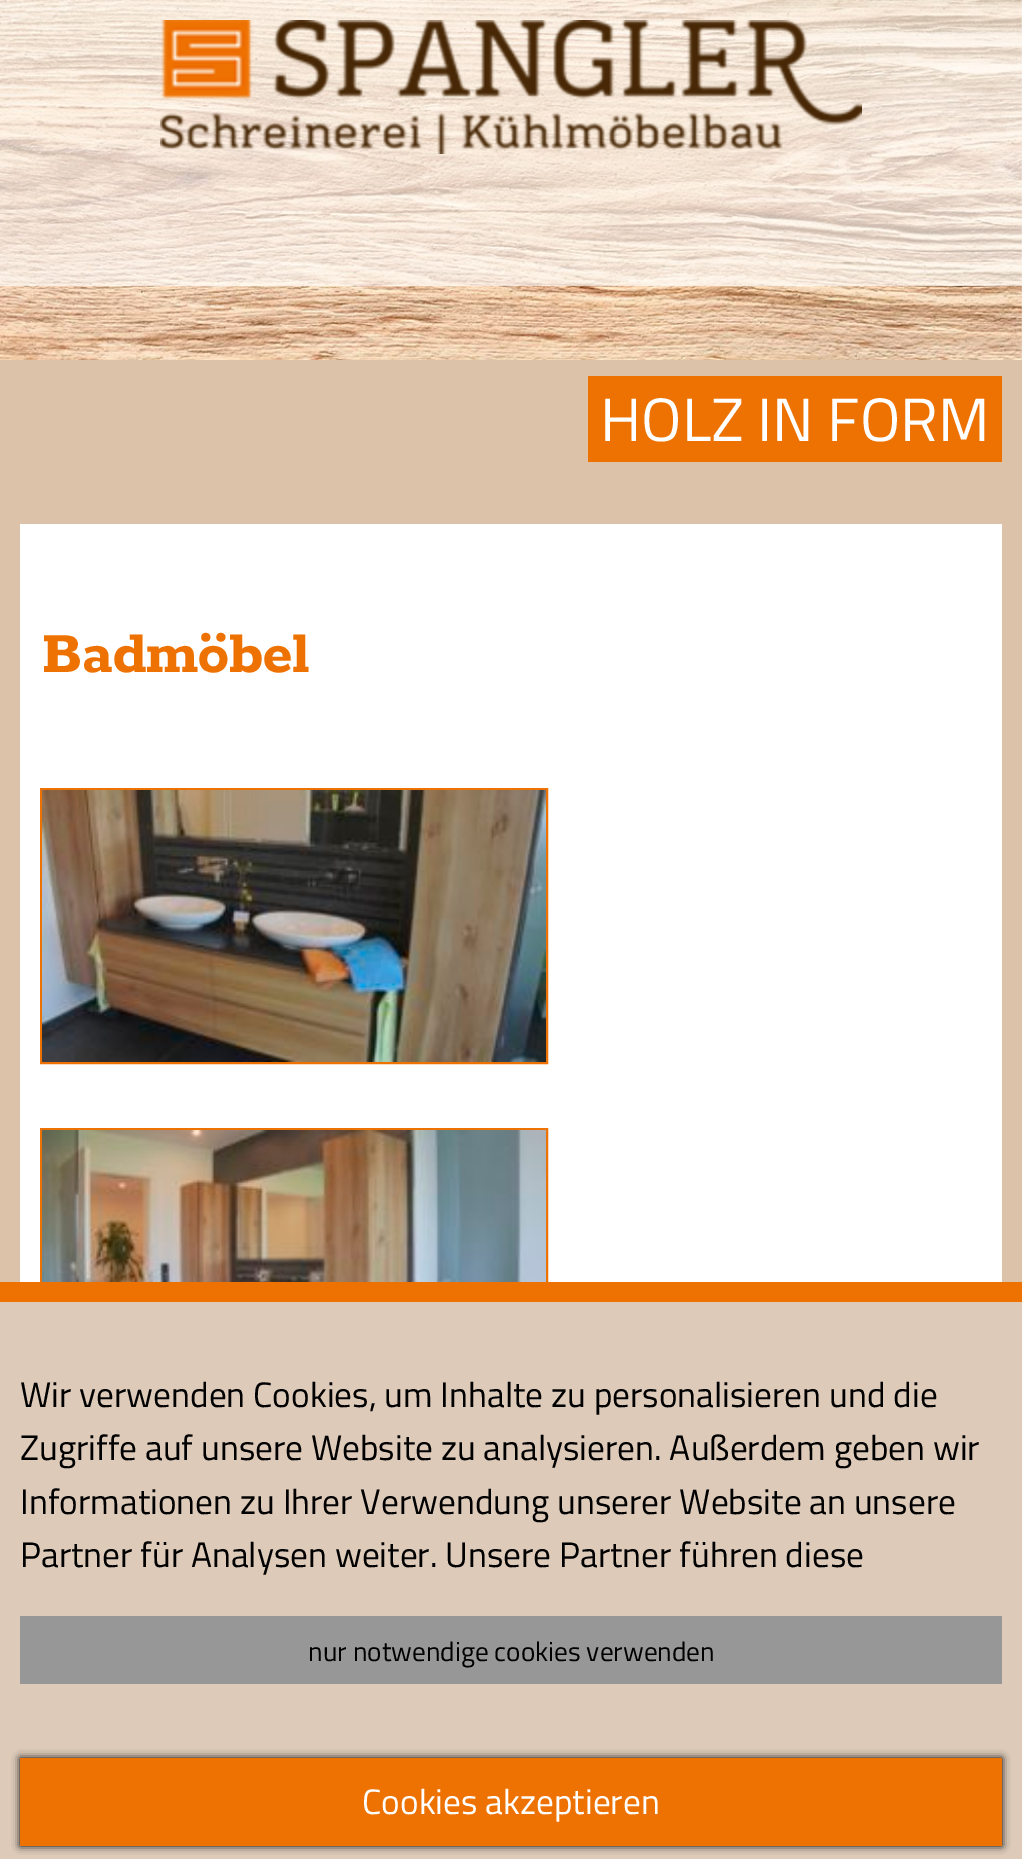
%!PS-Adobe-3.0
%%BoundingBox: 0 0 1022 1859
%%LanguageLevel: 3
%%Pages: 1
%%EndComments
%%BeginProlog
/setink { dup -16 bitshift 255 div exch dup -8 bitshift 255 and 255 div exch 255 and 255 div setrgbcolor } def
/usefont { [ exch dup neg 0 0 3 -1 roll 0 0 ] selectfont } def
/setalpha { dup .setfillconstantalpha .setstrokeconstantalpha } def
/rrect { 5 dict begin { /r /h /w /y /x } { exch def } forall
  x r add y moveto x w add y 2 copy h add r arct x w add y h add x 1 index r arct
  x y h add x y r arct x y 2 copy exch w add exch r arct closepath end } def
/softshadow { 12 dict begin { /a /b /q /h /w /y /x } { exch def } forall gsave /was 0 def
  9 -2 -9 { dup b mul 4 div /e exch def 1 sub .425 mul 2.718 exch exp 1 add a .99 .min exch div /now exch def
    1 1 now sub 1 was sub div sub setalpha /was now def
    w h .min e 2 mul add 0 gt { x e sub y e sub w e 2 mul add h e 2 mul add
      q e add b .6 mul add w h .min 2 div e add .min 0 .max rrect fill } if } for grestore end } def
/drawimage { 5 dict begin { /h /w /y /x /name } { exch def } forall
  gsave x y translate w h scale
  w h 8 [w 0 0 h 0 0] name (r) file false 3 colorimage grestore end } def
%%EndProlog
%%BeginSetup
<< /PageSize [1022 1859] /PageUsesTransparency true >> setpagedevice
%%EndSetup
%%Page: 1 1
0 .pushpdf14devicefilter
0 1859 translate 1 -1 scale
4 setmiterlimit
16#DCC2A8 setink
0 0 1022 1859 rectfill
(img1.raw) 0 0 1022 360 drawimage
0.6 setalpha
16#FFFFFF setink
0 0 1022 286 rectfill
1 setalpha
(img2.raw) 160 20 702 134 drawimage
16#EE7202 setink
588 376 414 86 rectfill
/TitilliumWeb-Regular 61.25 usefont
16#FFFFFF setink
600 441 moveto (HOLZ IN FORM) show
20 524 982 758 rectfill
/Rokkitt-Bold 64 usefont
16#EE7202 setink
41 672 moveto (Badmöbel) show
2 setlinewidth
41 789 506 274 rectstroke
(img3.raw) 42 790 504 272 drawimage
41 1129 506 274 rectstroke
(img4.raw) 42 1130 504 152 drawimage
0 1282 1022 20 rectfill
16#DDCAB9 setink
0 1302 1022 557 rectfill
/TitilliumWeb-Regular 35.35 usefont
16#000000 setink
[
    [(Wir verwenden Cookies, um Inhalte zu personalisieren und die) 20 1407]
    [(Zugriffe auf unsere Website zu analysieren. Außerdem geben wir) 20 1460]
    [(Informationen zu Ihrer Verwendung unserer Website an unsere) 20 1514]
    [(Partner für Analysen weiter. Unsere Partner führen diese) 20 1567]
] { aload pop moveto show } forall
16#979797 setink
20 1616 982 68 rectfill
/TitilliumWeb-Regular 27.25 usefont
16#000000 setink
308 1661 moveto (nur notwendige cookies verwenden) show
20 1758 982 88 0 4 1 softshadow
16#EE7202 setink
20 1758 982 88 rectfill
/TitilliumWeb-Regular 35.35 usefont
16#FFFFFF setink
362 1814 moveto (Cookies akzeptieren) show
.poppdf14devicefilter showpage
%%EOF
